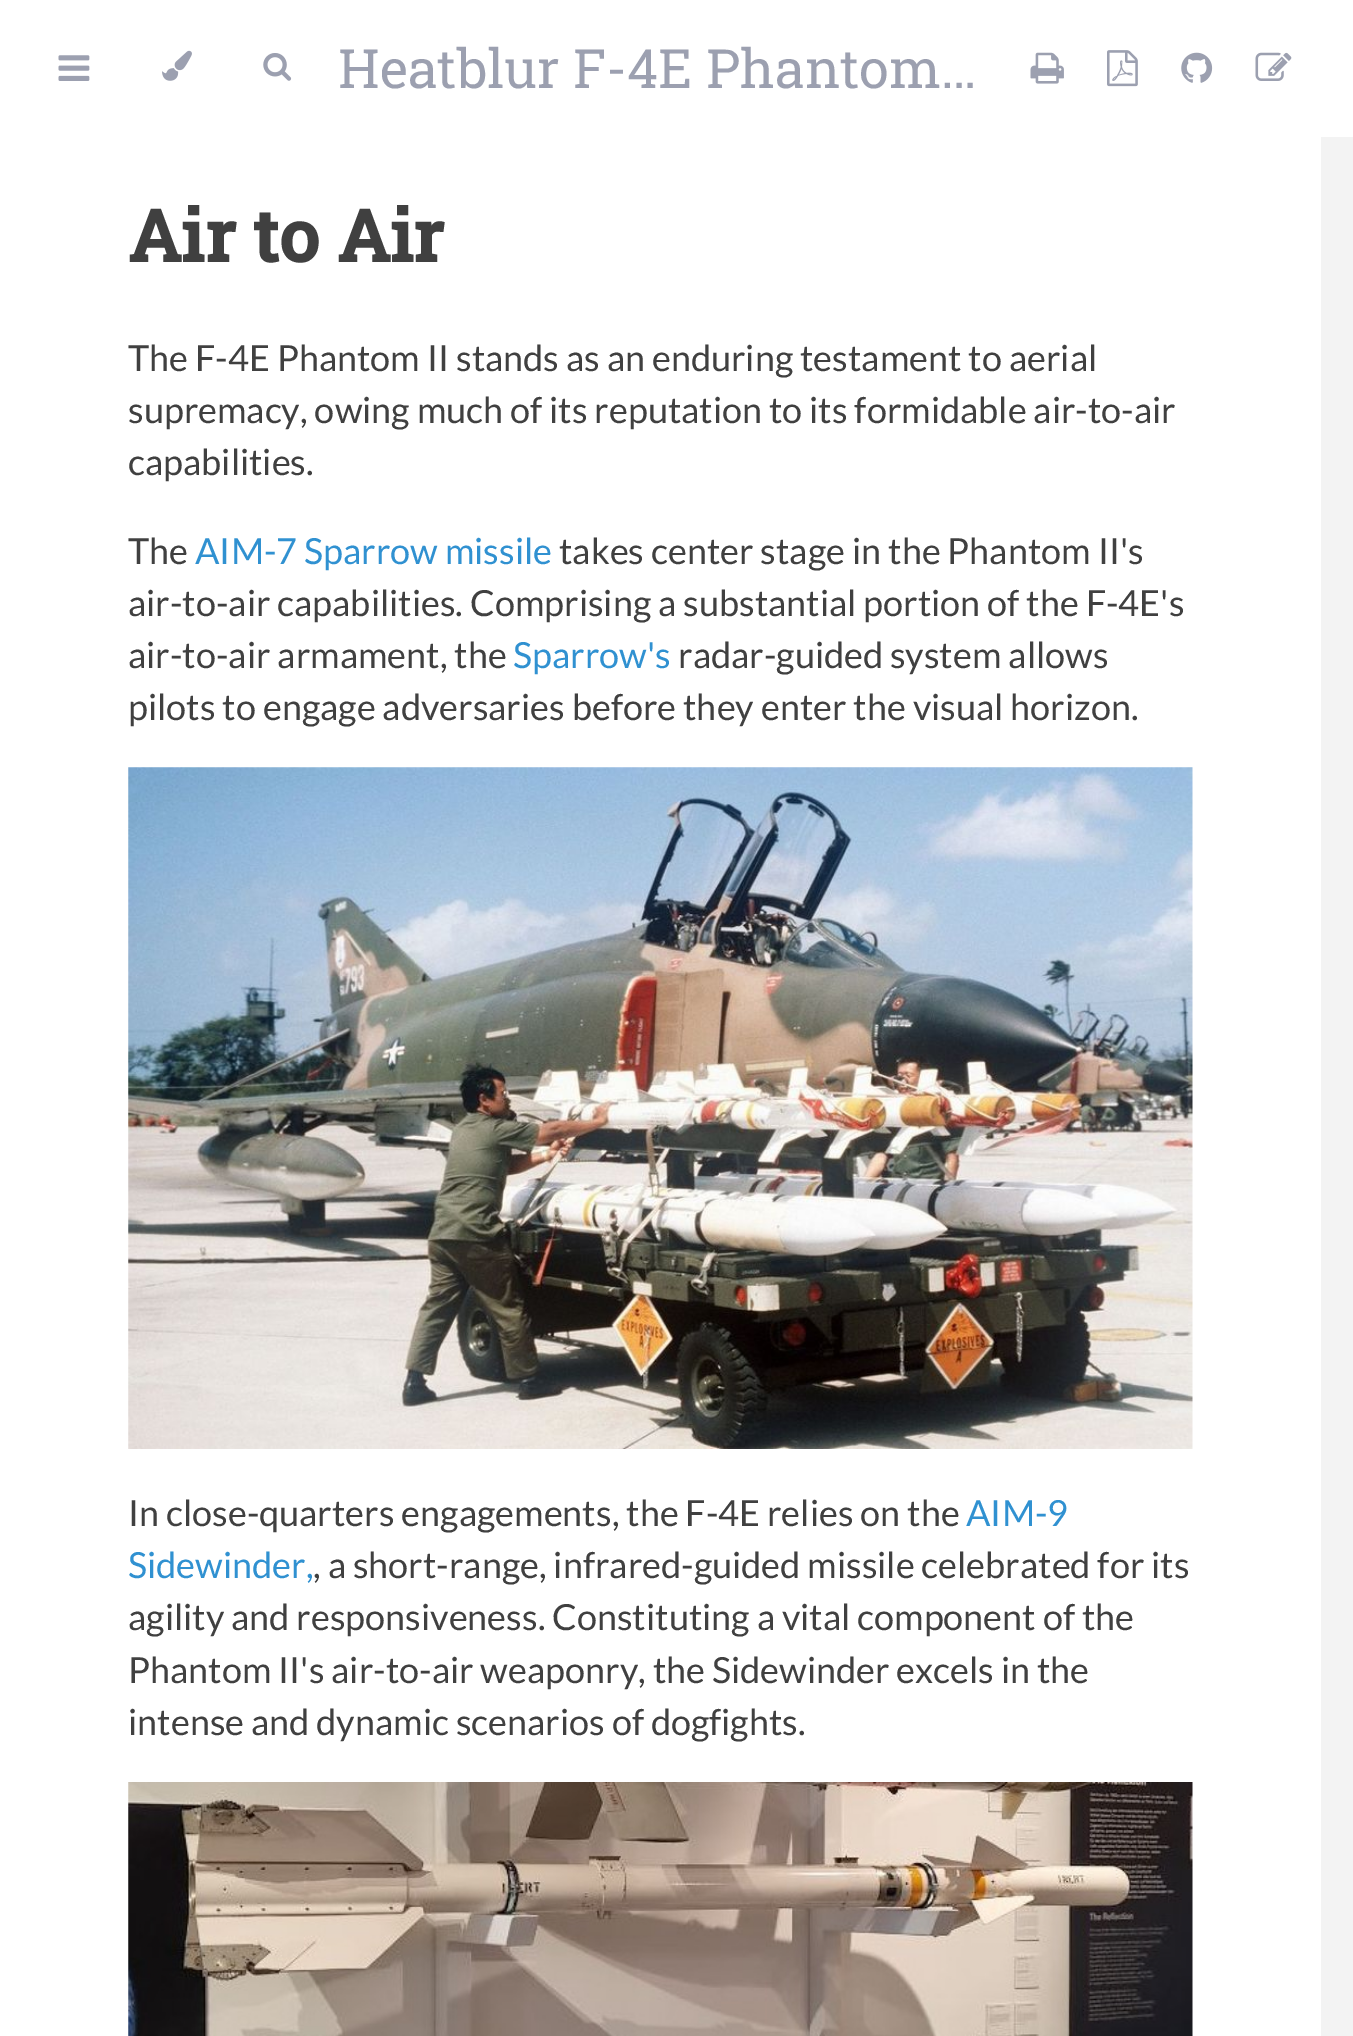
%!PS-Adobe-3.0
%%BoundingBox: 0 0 1353 2036
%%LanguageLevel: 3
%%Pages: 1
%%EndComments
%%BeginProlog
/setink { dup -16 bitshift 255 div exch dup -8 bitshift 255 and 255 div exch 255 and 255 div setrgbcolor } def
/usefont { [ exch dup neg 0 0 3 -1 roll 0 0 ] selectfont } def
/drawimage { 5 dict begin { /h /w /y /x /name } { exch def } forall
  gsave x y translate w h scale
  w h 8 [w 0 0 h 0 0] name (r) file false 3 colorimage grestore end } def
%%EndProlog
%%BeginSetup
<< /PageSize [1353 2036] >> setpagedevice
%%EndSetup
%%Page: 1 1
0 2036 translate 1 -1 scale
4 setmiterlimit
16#F3F3F3 setink
0 0 1353 2036 rectfill
16#FFFFFF setink
0 0 1353 137 rectfill
(img1.raw) 58 55 32 26 drawimage
(img2.raw) 162 50 30 31 drawimage
(img3.raw) 263 53 29 28 drawimage
/RobotoSlab-Regular 54 usefont
16#9CA0B0 setink
338 88 moveto (Heatblur F-4E Phantom…) show
(img4.raw) 1030 52 34 32 drawimage
(img5.raw) 1107 50 31 37 drawimage
(img6.raw) 1181 52 32 31 drawimage
(img7.raw) 1255 52 37 29 drawimage
16#FFFFFF setink
0 137 1321 1899 rectfill
/RobotoSlab-Bold 72 usefont
16#404040 setink
128 262 moveto (Air to Air) show
/Lato-Regular 36 usefont
[
    [(The F-4E Phantom II stands as an enduring testament to aerial) 128 371]
    [(supremacy, owing much of its reputation to its formidable air-to-air) 128 423]
    [(capabilities.) 128 475]
    [(The) 128 564]
] { aload pop moveto show } forall
16#3091D1 setink
195 564 moveto (AIM-7 Sparrow missile) show
16#404040 setink
[
    [(takes center stage in the Phantom II's) 559 564]
    [(air-to-air capabilities. Comprising a substantial portion of the F-4E's) 128 616]
    [(air-to-air armament, the) 128 668]
] { aload pop moveto show } forall
16#3091D1 setink
513 668 moveto (Sparrow's) show
16#404040 setink
678 668 moveto (radar-guided system allows) show
128 720 moveto (pilots to engage adversaries before they enter the visual horizon.) show
(img8.raw) 128 767 1065 682 drawimage
128 1526 moveto (In close-quarters engagements, the F-4E relies on the) show
16#3091D1 setink
966 1526 moveto (AIM-9) show
128 1578 moveto (Sidewinder,) show
16#404040 setink
[
    [(, a short-range, infrared-guided missile celebrated for its) 313 1578]
    [(agility and responsiveness. Constituting a vital component of the) 128 1630]
    [(Phantom II's air-to-air weaponry, the Sidewinder excels in the) 128 1683]
    [(intense and dynamic scenarios of dogfights.) 128 1735]
] { aload pop moveto show } forall
(img9.raw) 128 1782 1065 254 drawimage
showpage
%%EOF
